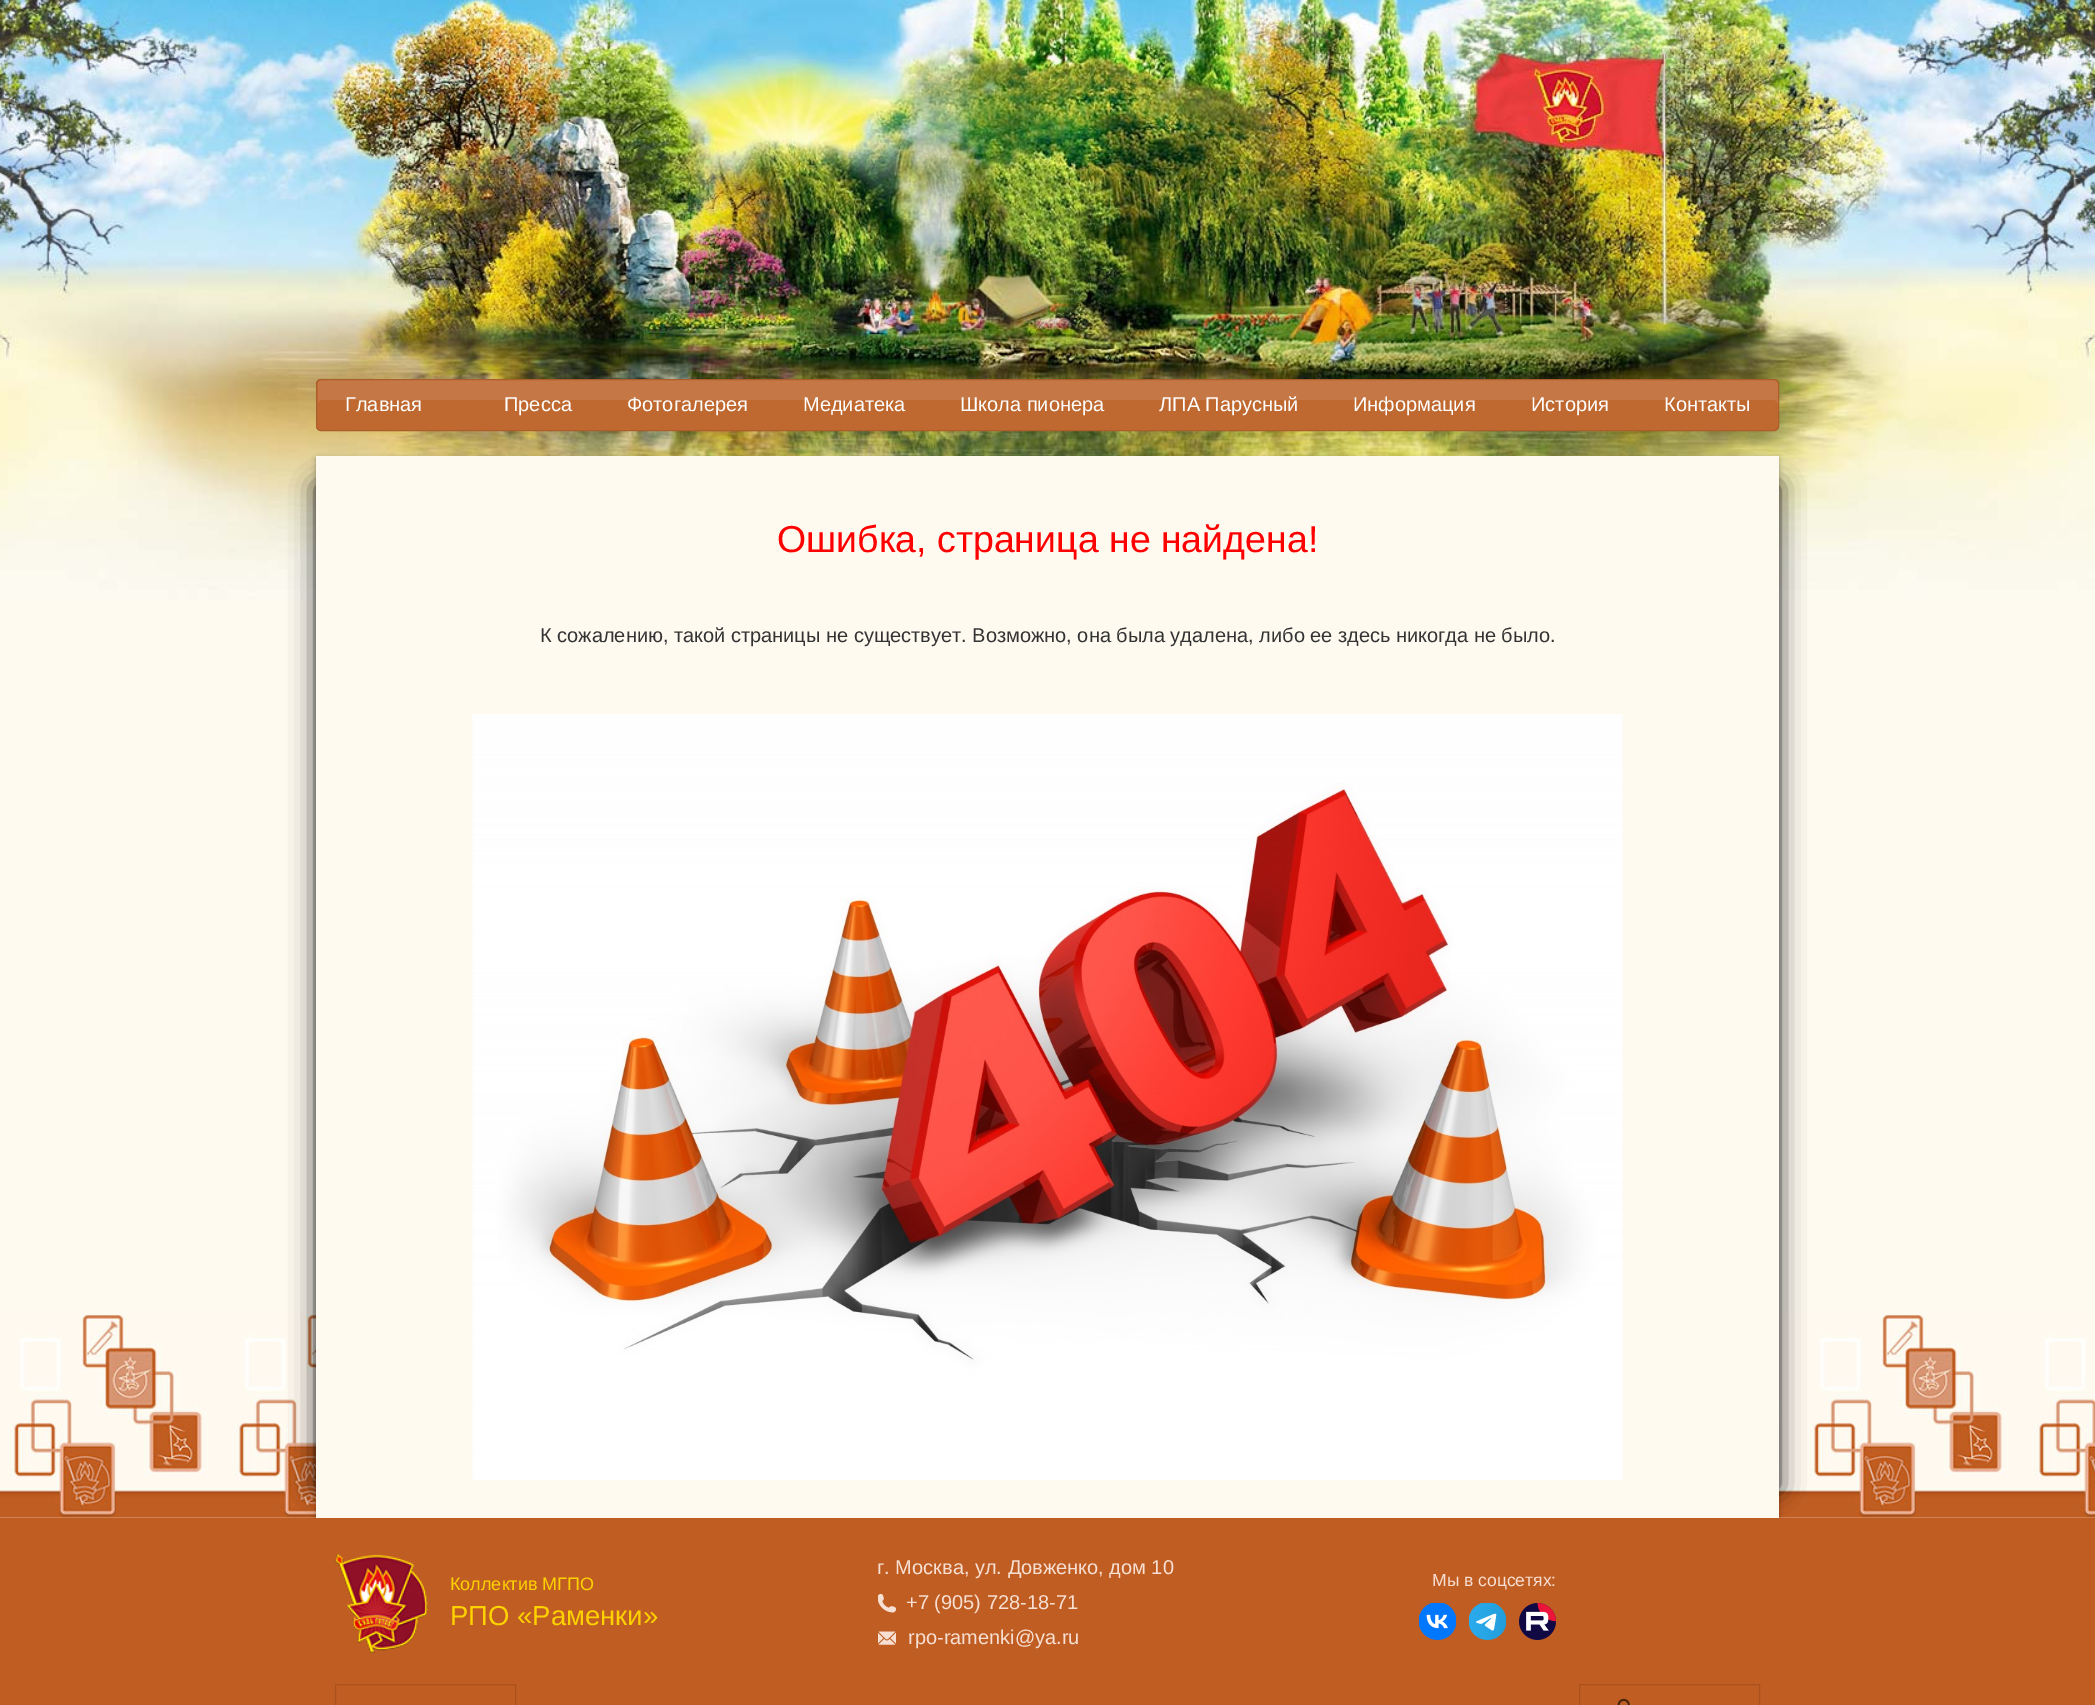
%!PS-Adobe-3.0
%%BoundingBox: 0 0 2095 1705
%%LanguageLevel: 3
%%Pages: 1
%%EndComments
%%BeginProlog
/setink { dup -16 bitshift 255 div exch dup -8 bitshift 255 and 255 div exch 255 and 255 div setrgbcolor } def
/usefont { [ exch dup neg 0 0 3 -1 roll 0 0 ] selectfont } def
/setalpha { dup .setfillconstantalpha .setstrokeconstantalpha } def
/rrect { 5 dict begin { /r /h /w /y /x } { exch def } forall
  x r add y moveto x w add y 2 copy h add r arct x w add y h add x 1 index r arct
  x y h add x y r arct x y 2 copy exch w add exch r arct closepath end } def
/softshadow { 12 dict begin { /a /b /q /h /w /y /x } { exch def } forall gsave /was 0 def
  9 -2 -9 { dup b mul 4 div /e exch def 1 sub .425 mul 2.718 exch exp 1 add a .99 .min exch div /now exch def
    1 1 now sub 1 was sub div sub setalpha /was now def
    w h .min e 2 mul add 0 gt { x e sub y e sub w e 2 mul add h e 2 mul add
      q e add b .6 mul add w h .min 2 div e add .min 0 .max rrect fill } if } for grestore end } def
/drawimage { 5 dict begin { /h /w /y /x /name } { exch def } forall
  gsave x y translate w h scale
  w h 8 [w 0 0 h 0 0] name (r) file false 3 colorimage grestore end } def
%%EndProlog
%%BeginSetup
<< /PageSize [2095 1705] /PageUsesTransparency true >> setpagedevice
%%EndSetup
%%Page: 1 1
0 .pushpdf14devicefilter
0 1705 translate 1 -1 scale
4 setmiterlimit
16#C05D22 setink
0 0 2095 1705 rectfill
16#FFFAF0 setink
0 600 2095 918 rectfill
(img1.raw) 0 1315 2095 203 drawimage
(img2.raw) 0 0 2095 600 drawimage
16#BF6930 setink
316 379 1463 52 5 rrect fill
16#C57845 setink
321 400 moveto 1774 400 lineto 1776 400 1778 402 1778 404 curveto 1778 384 lineto 1778 382 1776 380 1774 380 curveto 322 380 lineto 320 380 318 382 318 384 curveto 318 404 lineto 318 402 319 400 321 400 curveto closepath fill
16#AB5E2B setink
316.5 379.5 1462 51 4.5 rrect stroke
/LiberationSans-Regular 20 usefont
16#FFFFFF setink
[
    [(Главная) 345 411]
    [(Пресса) 504 411]
    [(Фотогалерея) 627 411]
    [(Медиатека) 803 411]
    [(Школа пионера) 960 411]
    [(ЛПА Парусный) 1159 411]
    [(Информация) 1353 411]
    [(История) 1531 411]
    [(Контакты) 1664 411]
] { aload pop moveto show } forall
16#000000 setink
374 485 1405 1004 0 12.5 0.8 softshadow
316 485 1405 1004 0 12.5 0.8 softshadow
gsave
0 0 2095 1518 rectclip
316 458 1463 1061 0 2.5 0.3 softshadow
grestore
16#FFFAF0 setink
316 456 1463 1062 rectfill
/LiberationSans-Regular 37.5 usefont
16#FF0000 setink
777 552 moveto (Ошибка, страница не найдена!) show
/LiberationSans-Regular 20 usefont
16#333333 setink
540 642 moveto (К сожалению, такой страницы не существует. Возможно, она была удалена, либо ее здесь никогда не было.) show
(img3.raw) 472 714 1151 766 drawimage
(img4.raw) 335 1554 93 100 drawimage
/LiberationSans-Regular 18 usefont
16#FDD200 setink
450 1590 moveto (Коллектив МГПО) show
/LiberationSans-Regular 27.5 usefont
450 1625 moveto (РПО «Раменки») show
/LiberationSans-Regular 20 usefont
16#F7E0D3 setink
877 1574 moveto (г. Москва, ул. Довженко, дом 10) show
(img5.raw) 878 1594 18 19 drawimage
906 1609 moveto (+7 \(905\) 728-18-71) show
(img6.raw) 878 1631 18 14 drawimage
908 1644 moveto (rpo-ramenki@ya.ru) show
/LiberationSans-Regular 17.5 usefont
1432 1586 moveto (Мы в соцсетях:) show
(img7.raw) 1419 1603 37 37 drawimage
(img8.raw) 1469 1603 37 37 drawimage
(img9.raw) 1519 1603 37 37 drawimage
16#A9521E setink
335.5 1684.5 180 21 rectstroke
1579.5 1684.5 180 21 rectstroke
(img10.raw) 1617 1698 13 7 drawimage
.poppdf14devicefilter showpage
%%EOF
